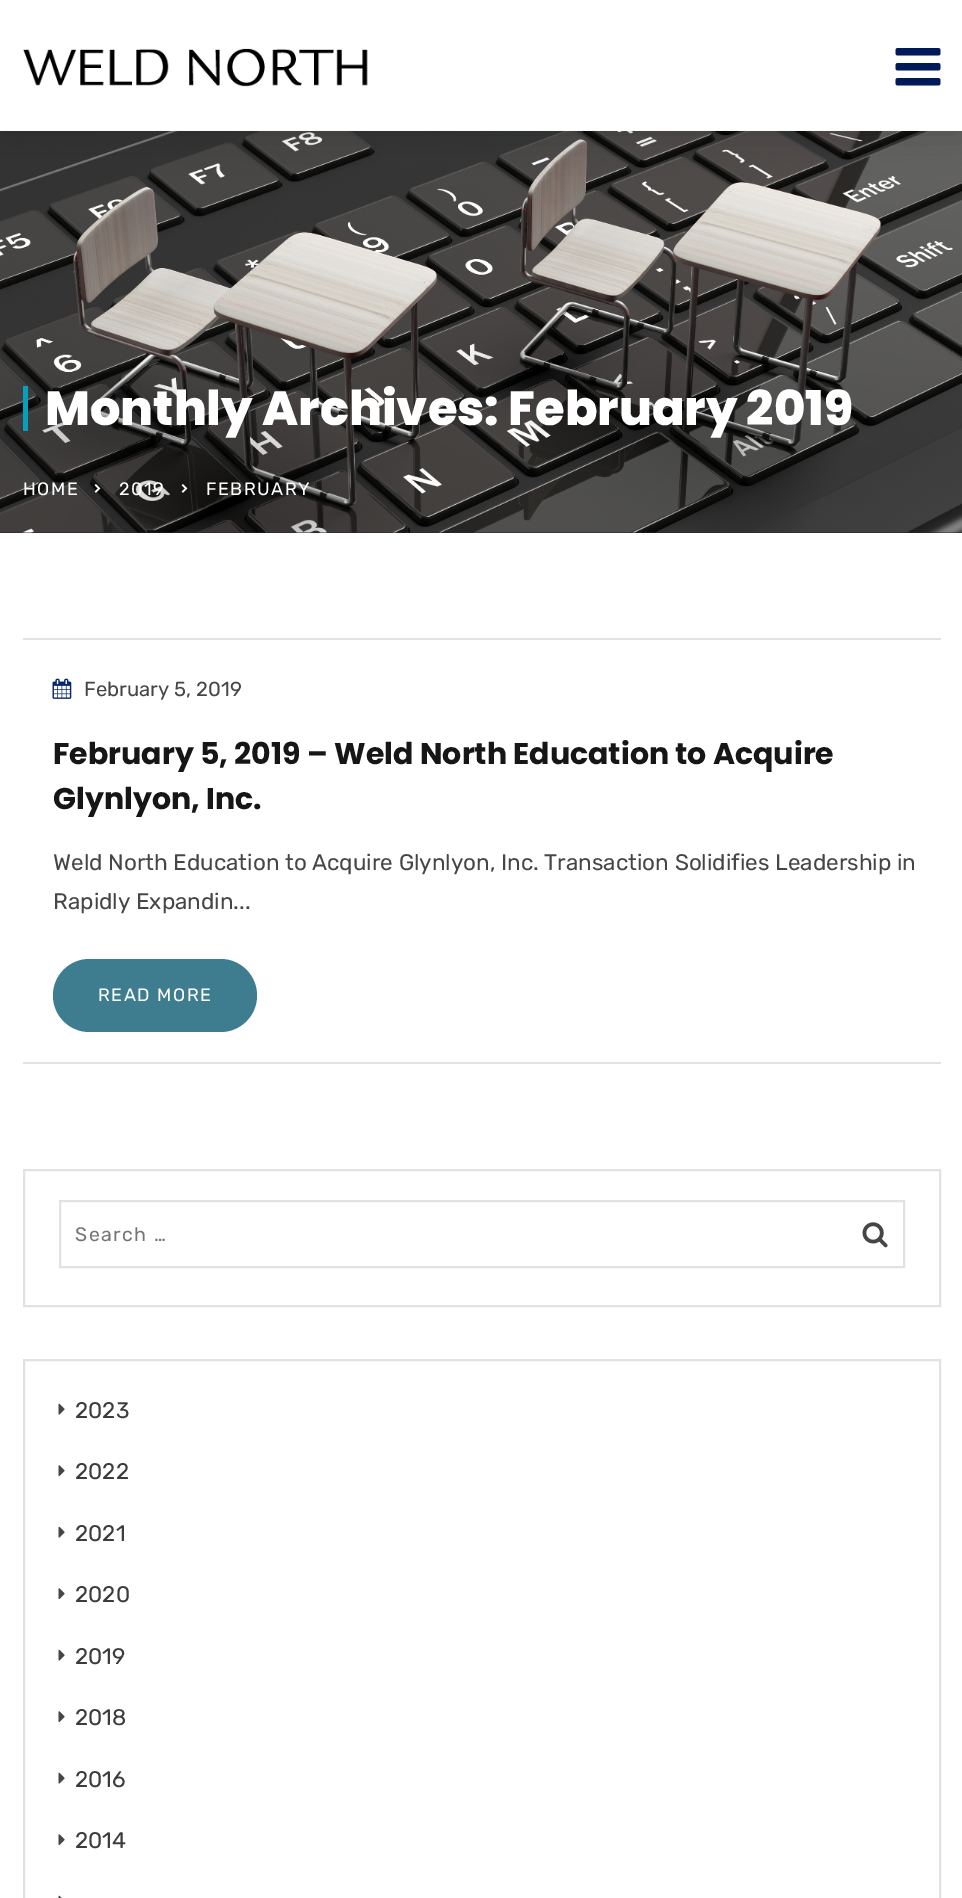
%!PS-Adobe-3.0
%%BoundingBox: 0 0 962 1898
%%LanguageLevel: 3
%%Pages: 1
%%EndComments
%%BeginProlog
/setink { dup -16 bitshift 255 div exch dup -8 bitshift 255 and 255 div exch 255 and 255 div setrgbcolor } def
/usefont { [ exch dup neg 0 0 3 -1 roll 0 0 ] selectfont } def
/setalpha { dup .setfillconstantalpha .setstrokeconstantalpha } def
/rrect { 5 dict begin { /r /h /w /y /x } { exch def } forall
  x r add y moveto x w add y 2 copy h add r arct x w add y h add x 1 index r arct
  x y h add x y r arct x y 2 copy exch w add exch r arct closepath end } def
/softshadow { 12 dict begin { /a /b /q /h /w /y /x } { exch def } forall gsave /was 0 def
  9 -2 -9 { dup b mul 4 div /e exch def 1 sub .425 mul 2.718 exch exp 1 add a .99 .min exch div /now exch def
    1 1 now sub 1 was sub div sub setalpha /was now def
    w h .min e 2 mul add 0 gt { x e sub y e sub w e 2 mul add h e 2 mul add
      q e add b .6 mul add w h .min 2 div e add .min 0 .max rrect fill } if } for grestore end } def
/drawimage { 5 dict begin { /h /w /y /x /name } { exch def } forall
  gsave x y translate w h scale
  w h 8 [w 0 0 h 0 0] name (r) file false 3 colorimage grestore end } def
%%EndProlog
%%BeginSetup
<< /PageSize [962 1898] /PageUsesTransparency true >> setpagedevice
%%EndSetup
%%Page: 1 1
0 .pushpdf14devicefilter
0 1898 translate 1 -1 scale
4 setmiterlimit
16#FFFFFF setink
0 0 962 1898 rectfill
16#252525 setink
0 532 962 1 rectfill
(img3.raw) 0 130 962 403 drawimage
gsave
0 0 moveto 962 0 lineto 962 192 lineto 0 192 lineto closepath 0 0 moveto 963 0 lineto 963 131 lineto 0 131 lineto closepath eoclip newpath
16#050606 setink
0 0 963 131 0 20 0.22 softshadow
grestore
0.95 setalpha
16#FFFFFF setink
0 130 962 1 rectfill
1 setalpha
(img1.raw) 23 48 345 39 drawimage
(img2.raw) 895 48 46 38 drawimage
16#06A0BC setink
23 386 5 45 rectfill
/Poppins-ExtraBold 48 usefont
16#FFFFFF setink
45 425 moveto (Monthly Archives: February 2019) show
/Rubik-Light 18 usefont
23 495 moveto 1.5 0 (HOME) ashow
(img4.raw) 94 484 7 9 drawimage
119 495 moveto 1.5 0 (2019) ashow
(img5.raw) 181 484 7 9 drawimage
206 495 moveto 1.5 0 (FEBRUARY) ashow
16#E2E2E2 setink
23 638 918 2 rectfill
23 1062 918 2 rectfill
(img6.raw) 52 678 20 21 drawimage
/Rubik-Light 20.25 usefont
16#464646 setink
84 696 moveto (February 5, 2019) show
/Poppins-Bold 30 usefont
16#161616 setink
53 764 moveto (February 5, 2019 – Weld North Education to Acquire) show
53 809 moveto (Glynlyon, Inc.) show
/Rubik-Light 22.5 usefont
16#464646 setink
53 870 moveto (Weld North Education to Acquire Glynlyon, Inc. Transaction Solidifies Leadership in) show
53 909 moveto (Rapidly Expandin...) show
16#3D7D8F setink
53 959 204 73 36.5 rrect fill
/Rubik-Light 18 usefont
16#FFFFFF setink
98 1001 moveto 1.5 0 (READ MORE) ashow
16#E2E2E2 setink
2 setlinewidth
24 1170 916 136 rectstroke
60 1201 844 66 rectstroke
/Rubik-Light 19.5 usefont
16#757575 setink
75 1241 moveto 1.5 0 (Search …) ashow
(img7.raw) 862 1222 26 26 drawimage
16#E2E2E2 setink
24 1360 916 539 rectstroke
(img8.raw) 58 1403 7 12 drawimage
/Rubik-Light 22.5 usefont
16#3C3C3C setink
75 1418 moveto (2023) show
(img9.raw) 58 1465 7 12 drawimage
75 1479 moveto (2022) show
(img8.raw) 58 1526 7 12 drawimage
75 1541 moveto (2021) show
(img9.raw) 58 1588 7 12 drawimage
75 1602 moveto (2020) show
(img8.raw) 58 1649 7 12 drawimage
75 1664 moveto (2019) show
(img9.raw) 58 1711 7 12 drawimage
75 1725 moveto (2018) show
(img8.raw) 58 1772 7 12 drawimage
75 1787 moveto (2016) show
(img9.raw) 58 1834 7 12 drawimage
75 1848 moveto (2014) show
(img10.raw) 58 1895 4 3 drawimage
.poppdf14devicefilter showpage
%%EOF
